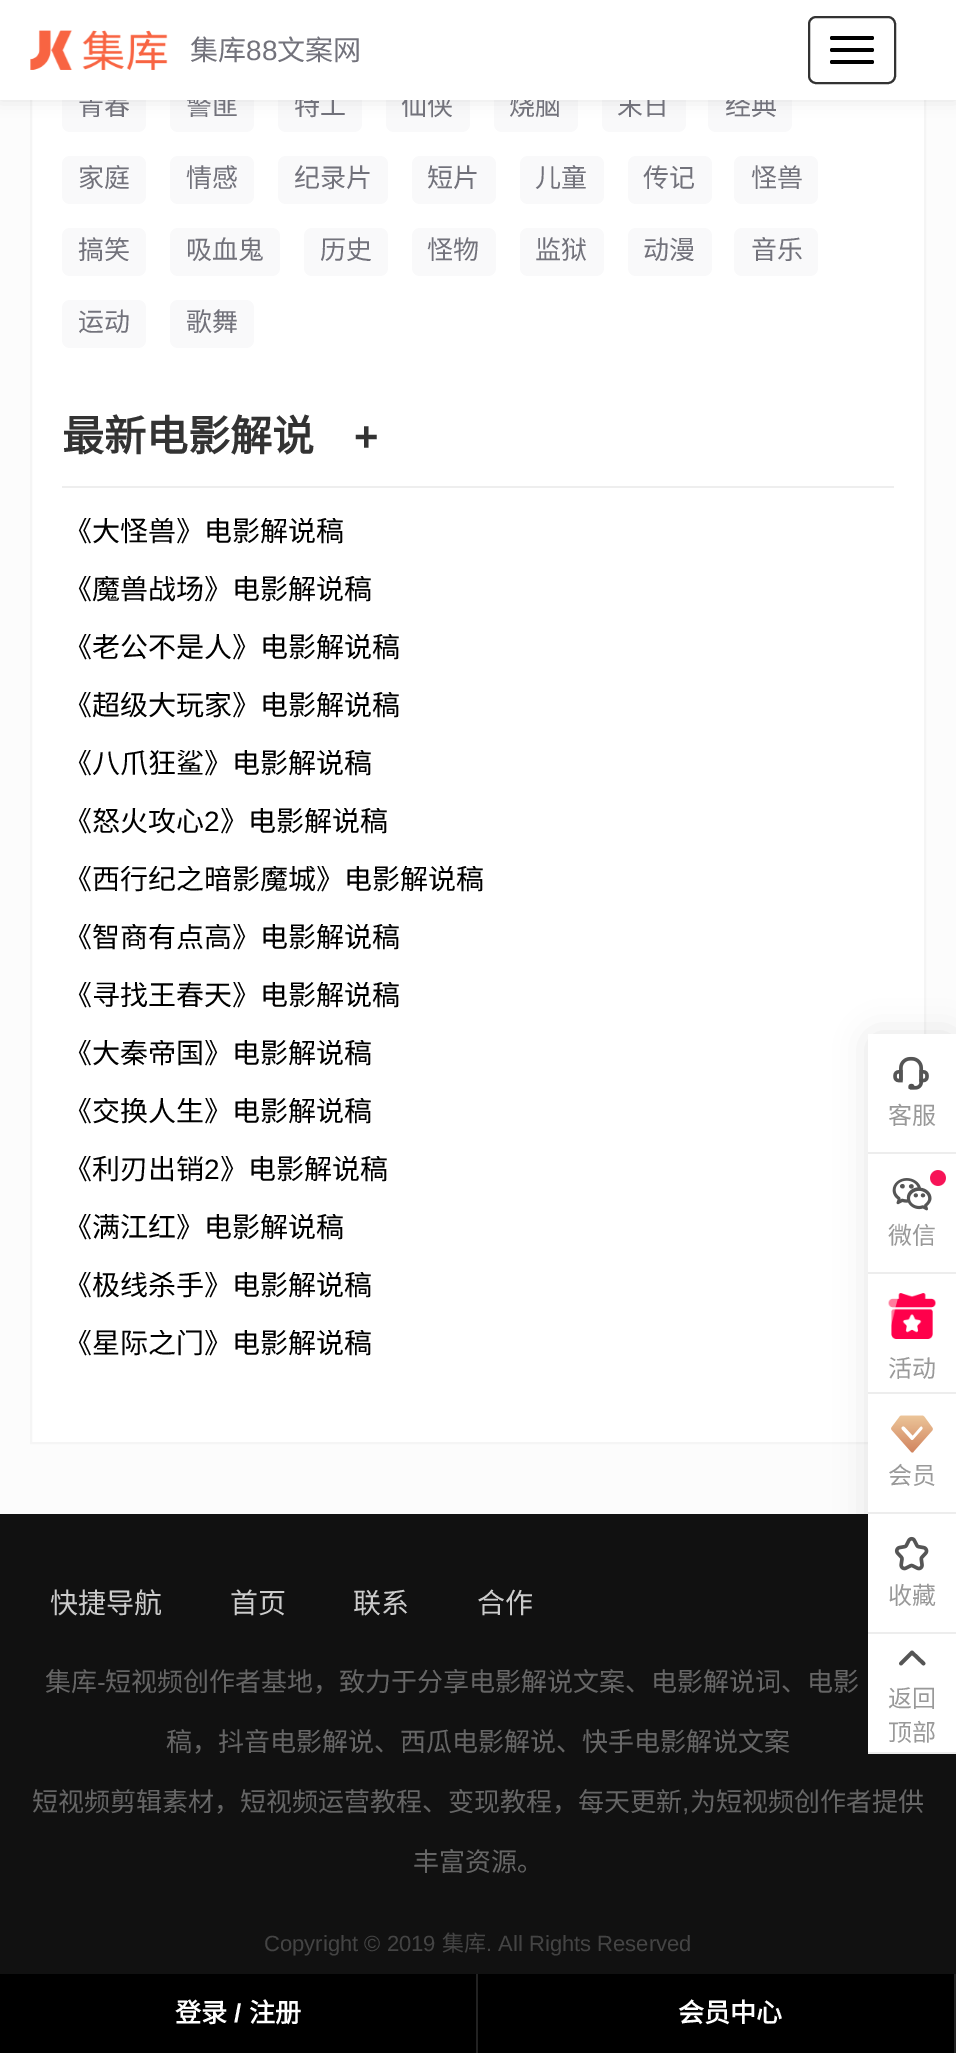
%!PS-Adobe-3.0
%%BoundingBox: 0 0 956 2053
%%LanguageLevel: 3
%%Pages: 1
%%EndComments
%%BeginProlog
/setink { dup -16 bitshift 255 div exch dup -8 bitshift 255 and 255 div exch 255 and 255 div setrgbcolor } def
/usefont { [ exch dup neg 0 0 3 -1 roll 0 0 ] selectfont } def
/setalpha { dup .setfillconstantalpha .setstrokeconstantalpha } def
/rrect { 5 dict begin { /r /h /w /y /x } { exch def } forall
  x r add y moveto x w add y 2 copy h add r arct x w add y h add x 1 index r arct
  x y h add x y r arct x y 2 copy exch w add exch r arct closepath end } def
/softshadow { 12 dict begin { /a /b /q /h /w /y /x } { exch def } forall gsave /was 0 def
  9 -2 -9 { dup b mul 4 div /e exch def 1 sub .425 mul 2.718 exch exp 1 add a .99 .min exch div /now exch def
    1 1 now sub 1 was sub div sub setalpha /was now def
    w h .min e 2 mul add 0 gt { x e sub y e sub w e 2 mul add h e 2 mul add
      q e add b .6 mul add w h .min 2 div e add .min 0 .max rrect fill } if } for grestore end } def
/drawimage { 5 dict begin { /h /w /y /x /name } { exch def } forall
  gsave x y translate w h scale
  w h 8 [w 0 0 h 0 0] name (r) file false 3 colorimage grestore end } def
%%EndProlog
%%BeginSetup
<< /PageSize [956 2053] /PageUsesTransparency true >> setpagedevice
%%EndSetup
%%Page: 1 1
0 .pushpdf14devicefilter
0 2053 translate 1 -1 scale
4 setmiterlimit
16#FCFCFC setink
0 0 956 2053 rectfill
16#FFFFFF setink
32 100 892 1342 rectfill
16#F5F5F5 setink
2 setlinewidth
31 -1 894 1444 rectstroke
16#F9F9FA setink
62 84 84 48 8 rrect fill
170 84 84 48 8 rrect fill
278 84 84 48 8 rrect fill
386 84 84 48 8 rrect fill
494 84 84 48 8 rrect fill
602 84 84 48 8 rrect fill
708 84 84 48 8 rrect fill
16#000000 setink
0 0 956 100 0 8 0.1 softshadow
/NotoSansCJKSC-Regular 26 usefont
16#72727B setink
[
    [(青春) 78 115]
    [(警匪) 186 115]
    [(特工) 294 115]
    [(仙侠) 401 115]
    [(烧脑) 509 115]
    [(末日) 617 115]
    [(经典) 725 115]
] { aload pop moveto show } forall
16#FFFFFF setink
0 0 956 100 rectfill
(img1.raw) 30 30 138 40 drawimage
/NotoSansCJKSC-Regular 28 usefont
16#72727B setink
190 60 moveto (集库) show
/LiberationSans-Regular 28 usefont
246 60 moveto (88) show
/NotoSansCJKSC-Regular 28 usefont
277 60 moveto (文案网) show
16#333333 setink
809 17 86 66 7 rrect stroke
16#000000 setink
830 36 44 4 2 rrect fill
830 48 44 4 2 rrect fill
830 60 44 4 2 rrect fill
16#F9F9FA setink
62 156 84 48 8 rrect fill
/NotoSansCJKSC-Regular 26 usefont
16#72727B setink
78 187 moveto (家庭) show
16#F9F9FA setink
170 156 84 48 8 rrect fill
16#72727B setink
186 187 moveto (情感) show
16#F9F9FA setink
278 156 110 48 8 rrect fill
16#72727B setink
294 187 moveto (纪录片) show
16#F9F9FA setink
412 156 84 48 8 rrect fill
16#72727B setink
427 187 moveto (短片) show
16#F9F9FA setink
520 156 84 48 8 rrect fill
16#72727B setink
535 187 moveto (儿童) show
16#F9F9FA setink
628 156 84 48 8 rrect fill
16#72727B setink
643 187 moveto (传记) show
16#F9F9FA setink
734 156 84 48 8 rrect fill
16#72727B setink
751 187 moveto (怪兽) show
16#F9F9FA setink
62 228 84 48 8 rrect fill
16#72727B setink
78 259 moveto (搞笑) show
16#F9F9FA setink
170 228 110 48 8 rrect fill
16#72727B setink
186 259 moveto (吸血鬼) show
16#F9F9FA setink
304 228 84 48 8 rrect fill
16#72727B setink
320 259 moveto (历史) show
16#F9F9FA setink
412 228 84 48 8 rrect fill
16#72727B setink
427 259 moveto (怪物) show
16#F9F9FA setink
520 228 84 48 8 rrect fill
16#72727B setink
535 259 moveto (监狱) show
16#F9F9FA setink
628 228 84 48 8 rrect fill
16#72727B setink
643 259 moveto (动漫) show
16#F9F9FA setink
734 228 84 48 8 rrect fill
16#72727B setink
751 259 moveto (音乐) show
16#F9F9FA setink
62 300 84 48 8 rrect fill
16#72727B setink
78 331 moveto (运动) show
16#F9F9FA setink
170 300 84 48 8 rrect fill
16#72727B setink
186 331 moveto (歌舞) show
16#EEEEEE setink
62 486 832 2 rectfill
/NotoSansCJKSC-Bold 42 usefont
16#333333 setink
62 451 moveto (最新电影解说) show
/LiberationSans-Bold 42 usefont
354 451 moveto (+) show
gsave
64 518 828 28 rectclip
/NotoSansCJKSC-Regular 28 usefont
16#000000 setink
64 541 moveto (《大怪兽》电影解说稿) show
grestore
gsave
64 576 828 28 rectclip
/NotoSansCJKSC-Regular 28 usefont
16#000000 setink
64 599 moveto (《魔兽战场》电影解说稿) show
grestore
gsave
64 634 828 28 rectclip
/NotoSansCJKSC-Regular 28 usefont
16#000000 setink
64 657 moveto (《老公不是人》电影解说稿) show
grestore
gsave
64 692 828 28 rectclip
/NotoSansCJKSC-Regular 28 usefont
16#000000 setink
64 715 moveto (《超级大玩家》电影解说稿) show
grestore
gsave
64 750 828 28 rectclip
/NotoSansCJKSC-Regular 28 usefont
16#000000 setink
64 773 moveto (《八爪狂鲨》电影解说稿) show
grestore
gsave
64 808 828 28 rectclip
/NotoSansCJKSC-Regular 28 usefont
16#000000 setink
64 831 moveto (《怒火攻心) show
grestore
/LiberationSans-Regular 28 usefont
16#000000 setink
204 831 moveto (2) show
gsave
64 808 828 28 rectclip
/NotoSansCJKSC-Regular 28 usefont
220 831 moveto (》电影解说稿) show
grestore
gsave
64 866 828 28 rectclip
/NotoSansCJKSC-Regular 28 usefont
64 889 moveto (《西行纪之暗影魔城》电影解说稿) show
grestore
gsave
64 924 828 28 rectclip
/NotoSansCJKSC-Regular 28 usefont
64 947 moveto (《智商有点高》电影解说稿) show
grestore
gsave
64 982 828 28 rectclip
/NotoSansCJKSC-Regular 28 usefont
64 1005 moveto (《寻找王春天》电影解说稿) show
grestore
gsave
64 1040 828 28 rectclip
/NotoSansCJKSC-Regular 28 usefont
64 1063 moveto (《大秦帝国》电影解说稿) show
grestore
gsave
64 1098 828 28 rectclip
/NotoSansCJKSC-Regular 28 usefont
64 1121 moveto (《交换人生》电影解说稿) show
grestore
gsave
64 1156 828 28 rectclip
/NotoSansCJKSC-Regular 28 usefont
64 1179 moveto (《利刃出销) show
grestore
204 1179 moveto (2) show
gsave
64 1156 828 28 rectclip
/NotoSansCJKSC-Regular 28 usefont
220 1179 moveto (》电影解说稿) show
grestore
gsave
64 1214 828 28 rectclip
/NotoSansCJKSC-Regular 28 usefont
64 1237 moveto (《满江红》电影解说稿) show
grestore
gsave
64 1272 828 28 rectclip
/NotoSansCJKSC-Regular 28 usefont
64 1295 moveto (《极线杀手》电影解说稿) show
grestore
gsave
64 1330 828 28 rectclip
/NotoSansCJKSC-Regular 28 usefont
64 1353 moveto (《星际之门》电影解说稿) show
grestore
16#111111 setink
0 1514 956 460 rectfill
16#000000 setink
868 1034 88 720 8 16 0.1 softshadow
[
    [868 1154 88 478 16#FFFFFF]
    [868 1034 88 118 16#FFFFFF]
    [868 1152 88 2 16#EDEDED]
] { aload pop setink rectfill } forall
(img2.raw) 893 1056 36 34 drawimage
/NotoSansCJKSC-Regular 24 usefont
16#999999 setink
888 1124 moveto (客服) show
16#EDEDED setink
868 1272 88 2 rectfill
(img4.raw) 892 1178 40 33 drawimage
(img3.raw) 930 1170 16 16 drawimage
16#999999 setink
888 1244 moveto (微信) show
16#EDEDED setink
868 1392 88 2 rectfill
(img5.raw) 888 1293 48 46 drawimage
16#999999 setink
888 1377 moveto (活动) show
16#EDEDED setink
868 1512 88 2 rectfill
(img6.raw) 891 1415 42 38 drawimage
16#999999 setink
888 1484 moveto (会员) show
16#EDEDED setink
868 1632 88 2 rectfill
(img7.raw) 894 1536 35 35 drawimage
16#999999 setink
888 1604 moveto (收藏) show
16#FFFFFF setink
868 1634 88 118 rectfill
16#EDEDED setink
868 1752 88 2 rectfill
16#555555 setink
3.7 setlinewidth
1 setlinecap
1 setlinejoin
923.5 1663.5 moveto 912 1652.5 lineto 901 1663.5 lineto stroke
16#999999 setink
888 1707 moveto (返回) show
888 1741 moveto (顶部) show
/NotoSansCJKSC-Regular 28 usefont
16#CCCCCC setink
[
    [(快捷导航) 50 1613]
    [(首页) 230 1613]
    [(联系) 353 1613]
    [(合作) 477 1613]
] { aload pop moveto show } forall
/NotoSansCJKSC-Regular 26 usefont
16#666666 setink
45 1691 moveto (集库) show
/LiberationSans-Regular 26 usefont
97 1691 moveto (-) show
/NotoSansCJKSC-Regular 26 usefont
[
    [(短视频创作者基地，致力于分享电影解说文案、电影解说词、电影) 105 1691]
    [(稿，抖音电影解说、西瓜电影解说、快手电影解说文案) 166 1751]
    [(短视频剪辑素材，短视频运营教程、变现教程，每天更新) 32 1811]
] { aload pop moveto show } forall
/LiberationSans-Regular 26 usefont
682 1811 moveto (,) show
/NotoSansCJKSC-Regular 26 usefont
690 1811 moveto (为短视频创作者提供) show
413 1871 moveto (丰富资源。) show
/LiberationSans-Regular 22 usefont
16#444444 setink
264 1951 moveto (Copyright © 2019) show
/NotoSansCJKSC-Regular 22 usefont
442 1951 moveto (集库) show
/LiberationSans-Regular 22 usefont
486 1951 moveto (. All Rights Reserved) show
16#000000 setink
0 1974 954 79 rectfill
16#222222 setink
476 1974 2 79 rectfill
/NotoSansCJKSC-Bold 26 usefont
16#FFFFFF setink
175 2022 moveto (登录) show
/LiberationSans-Bold 26 usefont
234 2022 moveto (/) show
/NotoSansCJKSC-Bold 26 usefont
249 2022 moveto (注册) show
16#222222 setink
954 1974 2 79 rectfill
16#FFFFFF setink
678 2022 moveto (会员中心) show
.poppdf14devicefilter showpage
%%EOF
